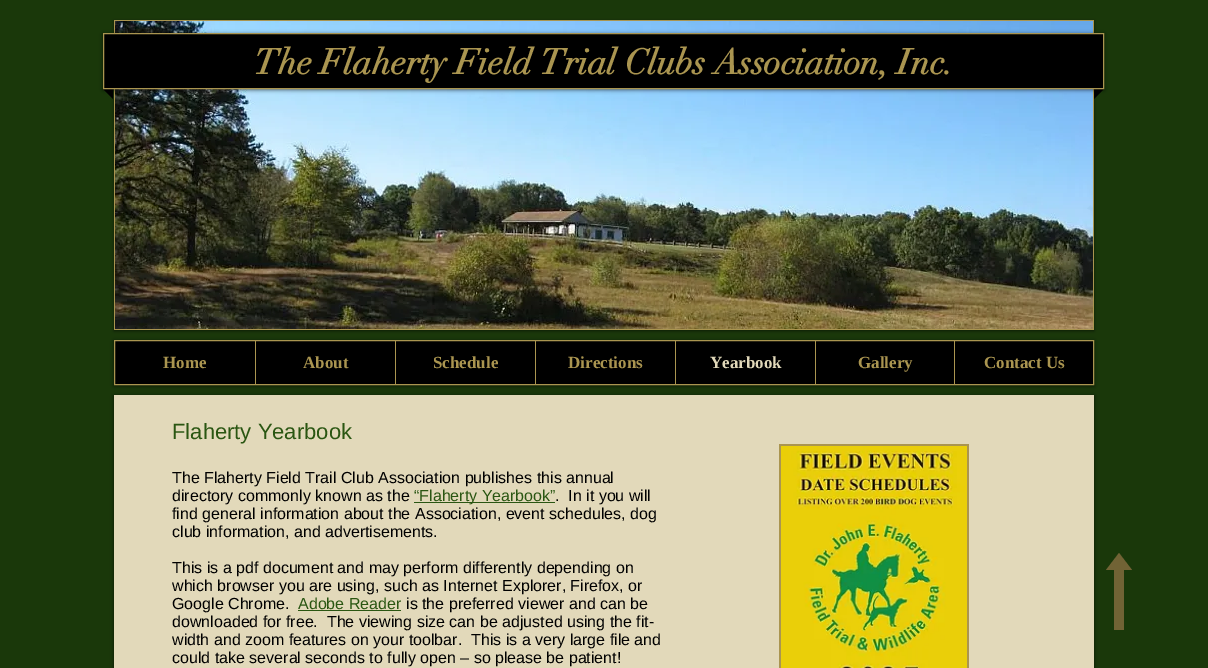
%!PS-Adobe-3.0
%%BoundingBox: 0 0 1208 668
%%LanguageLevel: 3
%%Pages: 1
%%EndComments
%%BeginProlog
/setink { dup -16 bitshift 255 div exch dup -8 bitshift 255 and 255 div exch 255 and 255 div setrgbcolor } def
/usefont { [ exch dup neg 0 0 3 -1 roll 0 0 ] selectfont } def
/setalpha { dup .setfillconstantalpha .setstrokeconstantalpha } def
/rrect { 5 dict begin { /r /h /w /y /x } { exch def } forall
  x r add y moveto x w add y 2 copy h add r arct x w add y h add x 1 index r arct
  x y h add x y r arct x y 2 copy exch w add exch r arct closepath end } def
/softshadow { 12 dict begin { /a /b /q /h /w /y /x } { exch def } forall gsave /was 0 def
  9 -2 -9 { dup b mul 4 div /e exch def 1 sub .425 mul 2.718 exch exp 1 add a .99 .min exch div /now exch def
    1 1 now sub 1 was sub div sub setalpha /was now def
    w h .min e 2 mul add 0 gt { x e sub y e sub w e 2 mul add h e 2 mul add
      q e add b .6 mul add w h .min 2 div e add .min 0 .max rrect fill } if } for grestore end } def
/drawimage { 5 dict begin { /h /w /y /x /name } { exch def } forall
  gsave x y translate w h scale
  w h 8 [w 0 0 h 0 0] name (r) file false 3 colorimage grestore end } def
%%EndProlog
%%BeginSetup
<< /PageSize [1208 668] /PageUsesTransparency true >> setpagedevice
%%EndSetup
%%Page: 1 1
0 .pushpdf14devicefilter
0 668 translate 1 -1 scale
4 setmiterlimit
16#1A380A setink
0 0 1208 668 rectfill
16#000000 setink
114 21 980 310 0 1.5 0.5 softshadow
16#AA9550 setink
114 20 980 310 rectfill
(img1.raw) 115 21 978 308 drawimage
16#000000 setink
103 89 moveto 113 89 lineto 113 99 lineto closepath fill
1094 89 moveto 1104 89 lineto 1094 99 lineto closepath fill
103 34 1001 56 0 2 0.6 softshadow
103.5 33.5 moveto 1103.5 33.5 lineto 1103.5 88.5 lineto 103.5 88.5 lineto closepath gsave fill grestore
16#AA9550 setink
stroke
/didot-Bold 35 usefont
254 74 moveto (The Flaherty Field Trial Clubs Association, Inc.) show
16#000000 setink
114 341 980 45 0 2 0.6 softshadow
114.5 340.5 moveto 1093.5 340.5 lineto 1093.5 384.5 lineto 114.5 384.5 lineto closepath gsave fill grestore
16#AA9550 setink
stroke
/LiberationSerif-Bold 17 usefont
163 368 moveto (Home) show
255 341 1 43 rectfill
303 368 moveto (About) show
395 341 1 43 rectfill
433 368 moveto (Schedule) show
535 341 1 43 rectfill
568 368 moveto (Directions) show
675 341 1 43 rectfill
16#E2D9BA setink
710 368 moveto (Yearbook) show
16#AA9550 setink
815 341 1 43 rectfill
858 368 moveto (Gallery) show
954 341 1 43 rectfill
984 368 moveto (Contact Us) show
16#000000 setink
114 396 980 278 0 2 0.6 softshadow
16#E2D9BA setink
114 395 980 273 rectfill
/LiberationSans-Regular 22 usefont
16#2A5612 setink
172 439 moveto (Flaherty Yearbook) show
/LiberationSans-Regular 16 usefont
16#000000 setink
172 483 moveto (The Flaherty Field Trail Club Association publishes this annual) show
172 501 moveto (directory commonly known as the) show
16#2A5612 setink
414 502 141 1 rectfill
414 501 moveto (“Flaherty Yearbook”) show
16#000000 setink
[
    [(.  In it you will) 555 501]
    [(find general information about the Association, event schedules, dog) 172 519]
    [(club information, and advertisements.) 172 537]
    [(This is a pdf document and may perform differently depending on) 172 573]
    [(which browser you are using, such as Internet Explorer, Firefox, or) 172 591]
    [(Google Chrome.) 172 609]
] { aload pop moveto show } forall
16#2A5612 setink
298 609 moveto (Adobe Reader) show
298 610 103 1 rectfill
16#000000 setink
[
    [(is the preferred viewer and can be) 406 609]
    [(downloaded for free.  The viewing size can be adjusted using the fit-) 172 627]
    [(width and zoom features on your toolbar.  This is a very large file and) 172 645]
    [(could take several seconds to fully open – so please be patient!) 172 663]
] { aload pop moveto show } forall
16#AA9550 setink
779 444 190 224 rectfill
(img2.raw) 781 446 186 222 drawimage
16#716335 setink
1124 630 moveto 1124 570 lineto 1132 570 lineto 1119 553 lineto 1106 570 lineto 1114 570 lineto 1114 630 lineto closepath fill
.poppdf14devicefilter showpage
%%EOF
